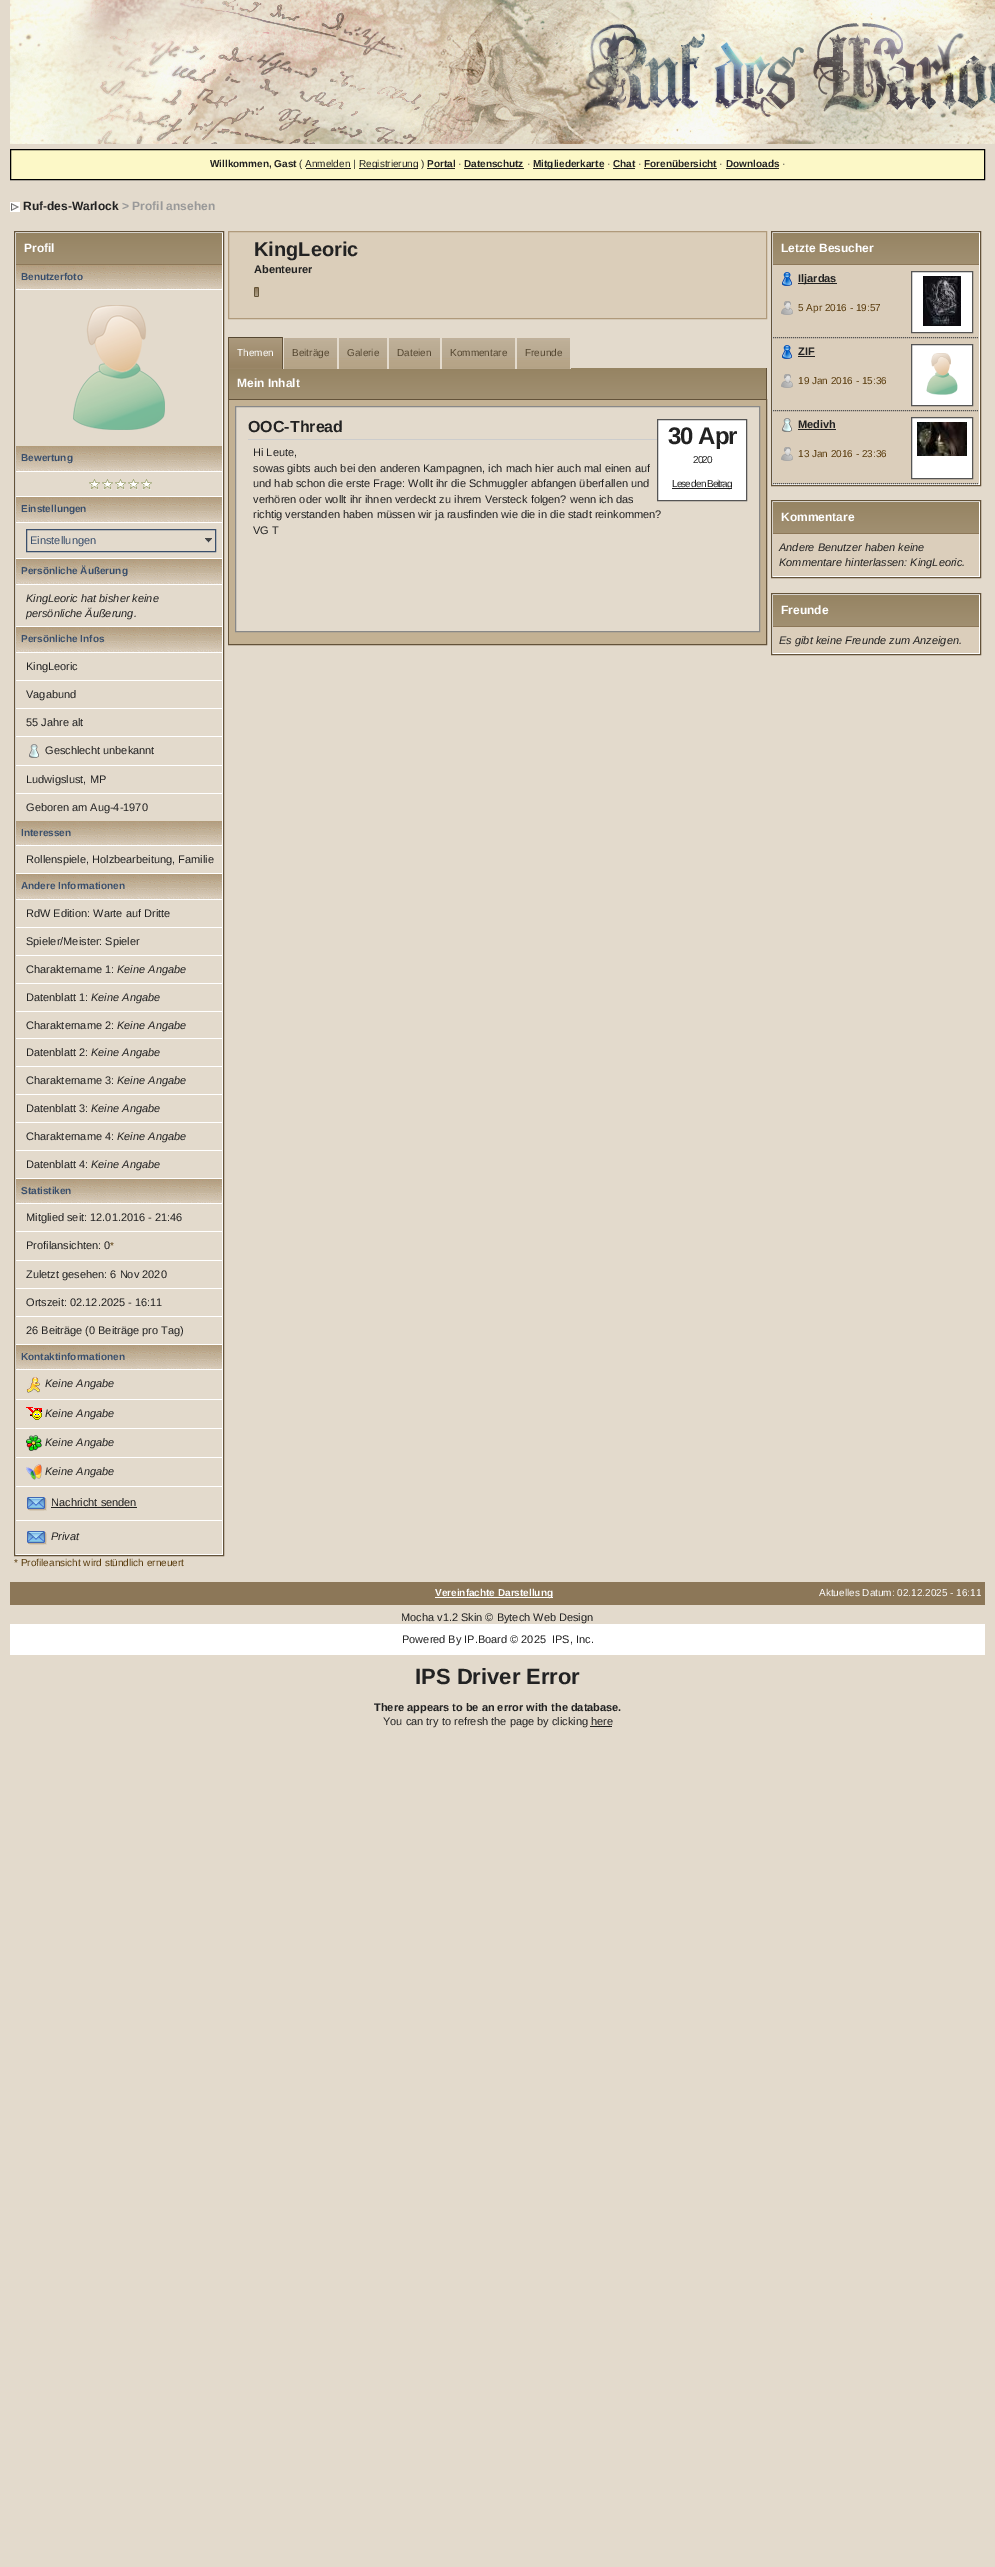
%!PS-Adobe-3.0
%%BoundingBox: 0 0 995 2567
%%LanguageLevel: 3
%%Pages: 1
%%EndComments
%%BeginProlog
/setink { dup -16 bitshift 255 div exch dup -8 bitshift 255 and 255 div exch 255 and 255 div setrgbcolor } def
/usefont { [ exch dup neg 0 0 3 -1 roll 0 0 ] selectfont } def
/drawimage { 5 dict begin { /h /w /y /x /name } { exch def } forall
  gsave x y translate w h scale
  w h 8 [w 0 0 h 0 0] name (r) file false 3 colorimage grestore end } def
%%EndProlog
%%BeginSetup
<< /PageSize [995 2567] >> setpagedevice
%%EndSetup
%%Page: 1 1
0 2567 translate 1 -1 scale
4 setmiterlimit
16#E3DACC setink
0 0 995 2567 rectfill
(img1.raw) 10 0 985 144 drawimage
16#FCF8C7 setink
10.5 149.5 moveto 984.5 149.5 lineto 984.5 179.5 lineto 10.5 179.5 lineto closepath gsave fill grestore
16#000001 setink
stroke
/LiberationSans-Bold 10 usefont
16#222222 setink
210 167 moveto (Willkommen, Gast) show
/LiberationSans-Regular 10 usefont
299 167 moveto (\( Anmelden |) show
359 168 59 1 rectfill
359 167 moveto (Registrierung \)) show
/LiberationSans-Bold 10 usefont
427 167 moveto (Portal) show
427 168 28 1 rectfill
/LiberationSans-Regular 10 usefont
458 167 moveto (·) show
/LiberationSans-Bold 10 usefont
464 167 moveto (Datenschutz) show
464 168 60 1 rectfill
/LiberationSans-Regular 10 usefont
527 167 moveto (·) show
533 168 71 1 rectfill
/LiberationSans-Bold 10 usefont
533 167 moveto (Mitgliederkarte) show
/LiberationSans-Regular 10 usefont
607 167 moveto (·) show
/LiberationSans-Bold 10 usefont
613 167 moveto (Chat) show
613 168 22 1 rectfill
/LiberationSans-Regular 10 usefont
638 167 moveto (·) show
/LiberationSans-Bold 10 usefont
644 167 moveto (Forenübersicht) show
644 168 73 1 rectfill
/LiberationSans-Regular 10 usefont
719 167 moveto (·) show
/LiberationSans-Bold 10 usefont
726 167 moveto (Downloads) show
726 168 53 1 rectfill
/LiberationSans-Regular 10 usefont
782 167 moveto (·) show
306 168 45 1 rectfill
(img2.raw) 10 202 10 10 drawimage
/LiberationSans-Bold 12 usefont
23 210 moveto (Ruf-des-Warlock) show
16#999999 setink
122 210 moveto (> Profil ansehen) show
16#FFFFFF setink
14.5 231.5 moveto 223.5 231.5 lineto 223.5 1555.5 lineto 14.5 1555.5 lineto closepath gsave fill grestore
16#635239 setink
stroke
(img3.raw) 16 233 206 31 drawimage
16#8C7758 setink
16 264 206 1 rectfill
16#FFFFFF setink
24 252 moveto (Profil) show
(img4.raw) 16 265 206 24 drawimage
/LiberationSans-Bold 10 usefont
16#3A4F6C setink
21 280 moveto (Benutzerfoto) show
16#E3DACC setink
16 290 206 156 rectfill
(img5.raw) 73 305 92 125 drawimage
(img6.raw) 16 446 206 25 drawimage
16#3A4F6C setink
21 461 moveto (Bewertung) show
16#E3DACC setink
16 472 206 24 rectfill
(img7.raw) 89 479 11 11 drawimage
(img7.raw) 102 479 11 11 drawimage
(img7.raw) 115 479 11 11 drawimage
(img7.raw) 128 479 11 11 drawimage
(img7.raw) 141 479 11 11 drawimage
(img6.raw) 16 497 206 25 drawimage
16#3A4F6C setink
21 512 moveto (Einstellungen) show
16#E3DACC setink
16 523 206 35 rectfill
(img8.raw) 205 538 7 5 drawimage
16#3A4F6C setink
26.5 529.5 189 22 rectstroke
/LiberationSans-Regular 11 usefont
30 544 moveto (Einstellungen) show
(img6.raw) 16 559 206 25 drawimage
/LiberationSans-Bold 10 usefont
21 574 moveto (Persönliche Äußerung) show
16#E3DACC setink
16 585 206 41 rectfill
/LiberationSans-Italic 11 usefont
16#222222 setink
26 602 moveto (KingLeoric hat bisher keine) show
26 617 moveto (persönliche Äußerung.) show
(img6.raw) 16 627 206 25 drawimage
/LiberationSans-Bold 10 usefont
16#3A4F6C setink
21 642 moveto (Persönliche Infos) show
16#E3DACC setink
16 653 206 27 rectfill
/LiberationSans-Regular 11 usefont
16#222222 setink
26 670 moveto (KingLeoric) show
16#E3DACC setink
16 681 206 27 rectfill
16#222222 setink
26 698 moveto (Vagabund) show
16#E3DACC setink
16 709 206 27 rectfill
16#222222 setink
26 726 moveto (55 Jahre alt) show
16#E3DACC setink
16 737 206 28 rectfill
(img9.raw) 29 744 10 14 drawimage
16#222222 setink
45 754 moveto (Geschlecht unbekannt) show
16#E3DACC setink
16 766 206 27 rectfill
16#222222 setink
26 783 moveto (Ludwigslust, MP) show
16#E3DACC setink
16 794 206 27 rectfill
16#222222 setink
26 811 moveto (Geboren am Aug-4-1970) show
(img4.raw) 16 821 206 24 drawimage
/LiberationSans-Bold 10 usefont
16#3A4F6C setink
21 836 moveto (Interessen) show
16#E3DACC setink
16 846 206 27 rectfill
/LiberationSans-Regular 11 usefont
16#222222 setink
26 863 moveto (Rollenspiele, Holzbearbeitung, Familie) show
(img6.raw) 16 874 206 25 drawimage
/LiberationSans-Bold 10 usefont
16#3A4F6C setink
21 889 moveto (Andere Informationen) show
16#E3DACC setink
16 900 206 27 rectfill
/LiberationSans-Regular 11 usefont
16#222222 setink
26 917 moveto (RdW Edition: Warte auf Dritte) show
16#E3DACC setink
16 928 206 27 rectfill
16#222222 setink
26 945 moveto (Spieler/Meister: Spieler) show
16#E3DACC setink
16 956 206 27 rectfill
16#222222 setink
26 973 moveto (Charaktername 1:) show
/LiberationSans-Italic 11 usefont
117 973 moveto (Keine Angabe) show
16#E3DACC setink
16 984 206 27 rectfill
/LiberationSans-Regular 11 usefont
16#222222 setink
26 1001 moveto (Datenblatt 1:) show
/LiberationSans-Italic 11 usefont
91 1001 moveto (Keine Angabe) show
16#E3DACC setink
16 1012 206 26 rectfill
/LiberationSans-Regular 11 usefont
16#222222 setink
26 1029 moveto (Charaktername 2:) show
/LiberationSans-Italic 11 usefont
117 1029 moveto (Keine Angabe) show
16#E3DACC setink
16 1039 206 27 rectfill
/LiberationSans-Regular 11 usefont
16#222222 setink
26 1056 moveto (Datenblatt 2:) show
/LiberationSans-Italic 11 usefont
91 1056 moveto (Keine Angabe) show
16#E3DACC setink
16 1067 206 27 rectfill
/LiberationSans-Regular 11 usefont
16#222222 setink
26 1084 moveto (Charaktername 3:) show
/LiberationSans-Italic 11 usefont
117 1084 moveto (Keine Angabe) show
16#E3DACC setink
16 1095 206 27 rectfill
/LiberationSans-Regular 11 usefont
16#222222 setink
26 1112 moveto (Datenblatt 3:) show
/LiberationSans-Italic 11 usefont
91 1112 moveto (Keine Angabe) show
16#E3DACC setink
16 1123 206 27 rectfill
/LiberationSans-Regular 11 usefont
16#222222 setink
26 1140 moveto (Charaktername 4:) show
/LiberationSans-Italic 11 usefont
117 1140 moveto (Keine Angabe) show
16#E3DACC setink
16 1151 206 27 rectfill
/LiberationSans-Regular 11 usefont
16#222222 setink
26 1168 moveto (Datenblatt 4:) show
/LiberationSans-Italic 11 usefont
91 1168 moveto (Keine Angabe) show
(img4.raw) 16 1179 206 24 drawimage
/LiberationSans-Bold 10 usefont
16#3A4F6C setink
21 1194 moveto (Statistiken) show
16#E3DACC setink
16 1204 206 27 rectfill
/LiberationSans-Regular 11 usefont
16#222222 setink
26 1221 moveto (Mitglied seit: 12.01.2016 - 21:46) show
16#E3DACC setink
16 1232 206 28 rectfill
16#222222 setink
26 1249 moveto (Profilansichten: 0) show
/LiberationSans-Regular 10 usefont
16#583A0B setink
110 1249 moveto (*) show
16#E3DACC setink
16 1261 206 27 rectfill
/LiberationSans-Regular 11 usefont
16#222222 setink
26 1278 moveto (Zuletzt gesehen: 6 Nov 2020) show
16#E3DACC setink
16 1289 206 27 rectfill
16#222222 setink
26 1306 moveto (Ortszeit: 02.12.2025 - 16:11) show
16#E3DACC setink
16 1317 206 27 rectfill
16#222222 setink
26 1334 moveto (26 Beiträge \(0 Beiträge pro Tag\)) show
(img4.raw) 16 1345 206 24 drawimage
/LiberationSans-Bold 10 usefont
16#3A4F6C setink
21 1360 moveto (Kontaktinformationen) show
16#E3DACC setink
16 1370 206 29 rectfill
(img10.raw) 26 1377 14 16 drawimage
/LiberationSans-Italic 11 usefont
16#222222 setink
45 1387 moveto (Keine Angabe) show
16#E3DACC setink
16 1400 206 28 rectfill
(img11.raw) 26 1407 16 13 drawimage
16#222222 setink
45 1417 moveto (Keine Angabe) show
16#E3DACC setink
16 1429 206 28 rectfill
(img12.raw) 26 1435 16 16 drawimage
16#222222 setink
45 1446 moveto (Keine Angabe) show
16#E3DACC setink
16 1458 206 28 rectfill
(img13.raw) 26 1464 16 16 drawimage
16#222222 setink
45 1475 moveto (Keine Angabe) show
16#E3DACC setink
16 1487 206 33 rectfill
(img14.raw) 27 1497 20 14 drawimage
/LiberationSans-Regular 11 usefont
16#222222 setink
51 1506 moveto (Nachricht senden) show
51 1507 86 1 rectfill
16#E3DACC setink
16 1521 206 33 rectfill
(img14.raw) 27 1531 20 14 drawimage
/LiberationSans-Italic 11 usefont
16#222222 setink
51 1540 moveto (Privat) show
/LiberationSans-Regular 10 usefont
16#583A0B setink
14 1566 moveto (* Profileansicht wird stündlich erneuert) show
16#DBCEBA setink
228.5 231.5 moveto 766.5 231.5 lineto 766.5 318.5 lineto 228.5 318.5 lineto closepath gsave fill grestore
16#B09A7B setink
stroke
/LiberationSans-Bold 20 usefont
16#222222 setink
254 256 moveto (KingLeoric) show
/LiberationSans-Bold 11 usefont
254 273 moveto (Abenteurer) show
(img15.raw) 254 287 5 10 drawimage
(img21.raw) 229 368 537 31 drawimage
(img16.raw) 229 338 53 31 drawimage
[
    [228 337 55 1 16#554731]
    [282 337 1 32 16#635239]
    [228 368 1 31 16#635239]
    [228 337 1 32 16#635239]
] { aload pop setink rectfill } forall
/LiberationSans-Regular 10 usefont
16#FFFFFF setink
237 356 moveto (Themen) show
(img17.raw) 284 338 53 31 drawimage
16#E3DACD setink
337 368 2 1 rectfill
283 368 1 1 rectfill
16#554731 setink
292 356 moveto (Beiträge) show
(img18.raw) 339 338 48 31 drawimage
16#E3DACD setink
387 368 2 1 rectfill
16#554731 setink
347 356 moveto (Galerie) show
(img19.raw) 389 338 51 31 drawimage
16#E3DACD setink
440 368 2 1 rectfill
16#554731 setink
397 356 moveto (Dateien) show
(img20.raw) 442 338 73 31 drawimage
16#E3DACD setink
515 368 2 1 rectfill
16#554731 setink
450 356 moveto (Kommentare) show
(img17.raw) 517 338 53 31 drawimage
16#E3DACD setink
570 368 1 1 rectfill
16#554731 setink
525 356 moveto (Freunde) show
16#635239 setink
766 368 1 31 rectfill
/LiberationSans-Bold 12 usefont
16#FFFFFF setink
237 387 moveto (Mein Inhalt) show
16#635239 setink
228.5 399.5 538 245 rectstroke
16#C3B193 setink
229 400 537 244 rectfill
16#E3DACC setink
235.5 406.5 moveto 759.5 406.5 lineto 759.5 631.5 lineto 235.5 631.5 lineto closepath gsave fill grestore
16#888888 setink
stroke
16#CCCCCC setink
248 439 409 1 rectfill
/LiberationSans-Bold 16 usefont
16#222222 setink
248 432 moveto (OOC-Thread) show
16#FFFFFF setink
657.5 419.5 moveto 746.5 419.5 lineto 746.5 500.5 lineto 657.5 500.5 lineto closepath gsave fill grestore
16#555555 setink
stroke
/LiberationSans-Bold 24 usefont
16#222222 setink
668 444 moveto -1 0 (30 Apr) ashow
/LiberationSans-Regular 10 usefont
693 463 moveto -1 0 (2020) ashow
672 488 60 1 rectfill
672 487 moveto -1 0 (Lese den Beitrag) ashow
/LiberationSans-Regular 11 usefont
[
    [(Hi Leute,) 253 456]
    [(sowas gibts auch bei den anderen Kampagnen, ich mach hier auch mal einen auf) 253 472]
    [(und hab schon die erste Frage: Wollt ihr die Schmuggler abfangen überfallen und) 253 487]
    [(verhören oder wollt ihr ihnen verdeckt zu ihrem Versteck folgen? wenn ich das) 253 503]
    [(richtig verstanden haben müssen wir ja rausfinden wie die in die stadt reinkommen?) 253 518]
    [(VG T) 253 534]
] { aload pop moveto show } forall
16#FFFFFF setink
771.5 231.5 moveto 980.5 231.5 lineto 980.5 485.5 lineto 771.5 485.5 lineto closepath gsave fill grestore
16#635239 setink
stroke
(img3.raw) 773 233 206 31 drawimage
16#8C7758 setink
773 264 206 1 rectfill
/LiberationSans-Bold 12 usefont
16#FFFFFF setink
781 252 moveto (Letzte Besucher) show
16#DBCEBB setink
773 265 206 219 rectfill
16#555555 setink
[1 1] 0 setdash
773 337.5 moveto 979 337.5 lineto stroke
(img22.raw) 782 272 10 14 drawimage
16#222222 setink
798 283 39 1 rectfill
/LiberationSans-Bold 11 usefont
798 282 moveto (Iljardas) show
16#FFFFFF setink
911.5 271.5 moveto 972.5 271.5 lineto 972.5 332.5 lineto 911.5 332.5 lineto closepath gsave fill grestore
16#555555 setink
[] 0 setdash
stroke
(img23.raw) 923 276 38 50 drawimage
(img24.raw) 781 301 12 14 drawimage
/LiberationSans-Regular 10 usefont
16#583A0B setink
798 311 moveto (5 Apr 2016 - 19:57) show
16#555555 setink
[1 1] 0 setdash
773 410.5 moveto 979 410.5 lineto stroke
(img22.raw) 782 345 10 14 drawimage
/LiberationSans-Bold 11 usefont
16#222222 setink
798 355 moveto (ZIF) show
798 356 17 1 rectfill
16#FFFFFF setink
911.5 344.5 moveto 972.5 344.5 lineto 972.5 405.5 lineto 911.5 405.5 lineto closepath gsave fill grestore
16#555555 setink
[] 0 setdash
stroke
(img25.raw) 926 353 32 42 drawimage
(img24.raw) 781 374 12 14 drawimage
/LiberationSans-Regular 10 usefont
16#583A0B setink
798 384 moveto (19 Jan 2016 - 15:36) show
16#555555 setink
[1 1] 0 setdash
773 483.5 moveto 979 483.5 lineto stroke
(img26.raw) 782 418 10 14 drawimage
/LiberationSans-Bold 11 usefont
16#222222 setink
798 428 moveto (Medivh) show
798 429 38 1 rectfill
16#FFFFFF setink
911.5 417.5 moveto 972.5 417.5 lineto 972.5 478.5 lineto 911.5 478.5 lineto closepath gsave fill grestore
16#555555 setink
[] 0 setdash
stroke
(img27.raw) 917 422 50 34 drawimage
(img24.raw) 781 447 12 14 drawimage
/LiberationSans-Regular 10 usefont
16#583A0B setink
798 457 moveto (13 Jan 2016 - 23:36) show
16#FFFFFF setink
771.5 500.5 moveto 980.5 500.5 lineto 980.5 577.5 lineto 771.5 577.5 lineto closepath gsave fill grestore
16#635239 setink
stroke
(img3.raw) 773 502 206 31 drawimage
16#8C7758 setink
773 533 206 1 rectfill
/LiberationSans-Bold 12 usefont
16#FFFFFF setink
781 521 moveto (Kommentare) show
16#DBCEBB setink
773 534 206 42 rectfill
/LiberationSans-Italic 11 usefont
16#222222 setink
779 551 moveto (Andere Benutzer haben keine) show
779 566 moveto (Kommentare hinterlassen: KingLeoric.) show
16#FFFFFF setink
771.5 593.5 moveto 980.5 593.5 lineto 980.5 654.5 lineto 771.5 654.5 lineto closepath gsave fill grestore
16#635239 setink
stroke
(img3.raw) 773 595 206 31 drawimage
16#8C7758 setink
773 626 206 1 rectfill
/LiberationSans-Bold 12 usefont
16#FFFFFF setink
781 614 moveto (Freunde) show
16#DBCEBB setink
773 627 206 26 rectfill
/LiberationSans-Italic 11 usefont
16#222222 setink
779 644 moveto (Es gibt keine Freunde zum Anzeigen.) show
16#8C7758 setink
10 1582 975 23 rectfill
16#FFFFFF setink
435 1597 118 1 rectfill
/LiberationSans-Bold 10 usefont
435 1596 moveto (Vereinfachte Darstellung) show
/LiberationSans-Regular 10 usefont
819 1596 moveto (Aktuelles Datum: 02.12.2025 - 16:11) show
/LiberationSans-Regular 11 usefont
16#222222 setink
401 1621 moveto (Mocha v1.2 Skin © Bytech Web Design) show
16#FFFFFF setink
10 1624 975 31 rectfill
16#222222 setink
402 1643 moveto (Powered By IP.Board © 2025) show
552 1643 moveto (IPS, Inc.) show
/LiberationSans-Bold 22 usefont
415 1684 moveto (IPS Driver Error) show
/LiberationSans-Bold 11 usefont
374 1711 moveto (There appears to be an error with the database.) show
/LiberationSans-Regular 11 usefont
383 1725 moveto (You can try to refresh the page by clicking here) show
590 1726 22 1 rectfill
showpage
%%EOF
